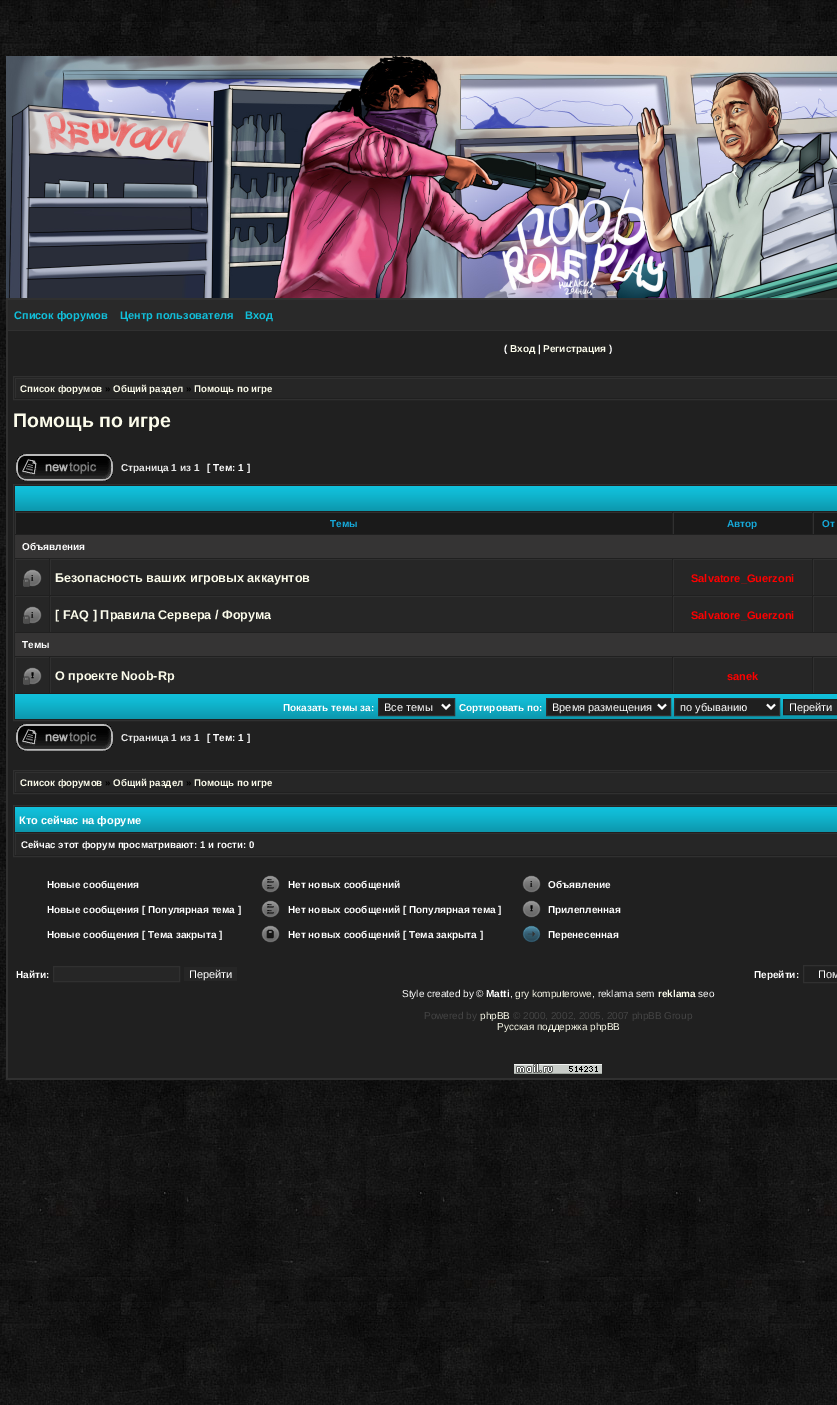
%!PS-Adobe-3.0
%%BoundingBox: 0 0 837 1405
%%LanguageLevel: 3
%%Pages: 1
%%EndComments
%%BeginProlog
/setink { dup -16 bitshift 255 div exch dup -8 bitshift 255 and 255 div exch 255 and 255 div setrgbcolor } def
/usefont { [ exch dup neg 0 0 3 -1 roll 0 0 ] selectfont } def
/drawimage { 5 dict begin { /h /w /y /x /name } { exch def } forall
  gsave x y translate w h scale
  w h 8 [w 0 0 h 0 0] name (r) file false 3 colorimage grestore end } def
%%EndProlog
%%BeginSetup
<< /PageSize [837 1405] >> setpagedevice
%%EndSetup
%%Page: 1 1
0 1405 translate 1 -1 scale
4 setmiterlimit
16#FFFFFF setink
0 0 837 1405 rectfill
(img1.raw) 0 0 837 1405 drawimage
(img2.raw) 6 56 831 242 drawimage
[
    [8 331 829 747 16#202020]
    [6 298 831 1 16#303030]
    [6 1078 831 2 16#303030]
    [6 298 2 782 16#303030]
    [8 300 829 30 16#292929]
    [8 299 829 1 16#303030]
    [8 330 829 1 16#303030]
] { aload pop setink rectfill } forall
/LiberationSans-Bold 11 usefont
16#11C0DB setink
[
    [(Список форумов) 14 319]
    [(Центр пользователя) 120 319]
    [(Вход) 245 319]
] { aload pop moveto show } forall
/LiberationSans-Bold 10 usefont
16#FFFFFF setink
504 352 moveto (\() show
16#FCFCEB setink
510 352 moveto (Вход) show
16#FFFFFF setink
538 352 moveto (|) show
16#FCFCEB setink
543 352 moveto (Регистрация) show
16#FFFFFF setink
609 352 moveto (\)) show
16#303030 setink
13.5 376.5 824 23 rectstroke
[
    [16 379 821 19 16#262626]
    [15 378 822 1 16#303030]
    [15 378 1 20 16#303030]
] { aload pop setink rectfill } forall
/LiberationSans-Bold 9.7 usefont
16#FCFCEB setink
20 392 moveto (Список форумов) show
16#000000 setink
105 392 moveto (») show
16#FCFCEB setink
113 392 moveto (Общий раздел) show
16#000000 setink
186 392 moveto (») show
16#FCFCEB setink
194 392 moveto (Помощь по игре) show
/LiberationSans-Bold 19.5 usefont
13 427 moveto (Помощь по игре) show
(img3.raw) 16 454 97 27 drawimage
/LiberationSans-Bold 10 usefont
16#E7E7E7 setink
121 471 moveto (Страница 1 из 1) show
16#FFFFFF setink
207 471 moveto ([ Тем: 1 ]) show
16#303030 setink
13.5 484.5 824 236 rectstroke
(img4.raw) 15 486 822 25 drawimage
[
    [16 513 656 21 16#1A1A1A]
    [15 512 657 1 16#303030]
    [15 512 1 22 16#303030]
] { aload pop setink rectfill } forall
16#16AADB setink
330 527 moveto (Темы) show
[
    [674 513 138 21 16#1A1A1A]
    [673 512 139 1 16#303030]
    [673 512 1 22 16#303030]
] { aload pop setink rectfill } forall
16#16AADB setink
727 527 moveto (Автор) show
[
    [814 513 23 21 16#1A1A1A]
    [813 512 24 1 16#303030]
    [813 512 1 22 16#303030]
] { aload pop setink rectfill } forall
16#16AADB setink
822 527 moveto (От) show
16#353434 setink
15 535 822 23 rectfill
16#FFFFFF setink
22 550 moveto (Объявления) show
[
    [16 560 33 35 16#262626]
    [15 559 34 1 16#303030]
    [15 559 1 36 16#303030]
] { aload pop setink rectfill } forall
(img5.raw) 23 569 19 18 drawimage
[
    [51 560 621 35 16#262626]
    [50 559 622 1 16#303030]
    [50 559 1 36 16#303030]
] { aload pop setink rectfill } forall
/LiberationSans-Bold 12.6 usefont
16#FCFCEB setink
55 582 moveto (Безопасность ваших игровых аккаунтов) show
[
    [674 560 138 35 16#262626]
    [673 559 139 1 16#303030]
    [673 559 1 36 16#303030]
] { aload pop setink rectfill } forall
/LiberationSans-Bold 11 usefont
16#FF0000 setink
691 582 moveto (Salvatore_Guerzoni) show
[
    [814 560 23 35 16#262626]
    [813 559 24 1 16#303030]
    [813 559 1 36 16#303030]
    [16 597 33 35 16#262626]
    [15 596 34 1 16#303030]
    [15 596 1 36 16#303030]
] { aload pop setink rectfill } forall
(img5.raw) 23 606 19 18 drawimage
[
    [51 597 621 35 16#262626]
    [50 596 622 1 16#303030]
    [50 596 1 36 16#303030]
] { aload pop setink rectfill } forall
/LiberationSans-Bold 12.6 usefont
16#FCFCEB setink
55 619 moveto ([ FAQ ] Правила Сервера / Форума) show
[
    [674 597 138 35 16#262626]
    [673 596 139 1 16#303030]
    [673 596 1 36 16#303030]
] { aload pop setink rectfill } forall
/LiberationSans-Bold 11 usefont
16#FF0000 setink
691 619 moveto (Salvatore_Guerzoni) show
[
    [814 597 23 35 16#262626]
    [813 596 24 1 16#303030]
    [813 596 1 36 16#303030]
    [15 633 822 23 16#353434]
] { aload pop setink rectfill } forall
/LiberationSans-Bold 10 usefont
16#FFFFFF setink
22 648 moveto (Темы) show
[
    [16 658 33 35 16#262626]
    [15 657 34 1 16#303030]
    [15 657 1 36 16#303030]
] { aload pop setink rectfill } forall
(img6.raw) 23 667 19 18 drawimage
[
    [51 658 621 35 16#262626]
    [50 657 622 1 16#303030]
    [50 657 1 36 16#303030]
] { aload pop setink rectfill } forall
/LiberationSans-Bold 12.6 usefont
16#FCFCEB setink
55 680 moveto (О проекте Noob-Rp) show
[
    [674 658 138 35 16#262626]
    [673 657 139 1 16#303030]
    [673 657 1 36 16#303030]
] { aload pop setink rectfill } forall
/LiberationSans-Bold 11 usefont
16#FF0000 setink
727 680 moveto (sanek) show
[
    [814 658 23 35 16#262626]
    [813 657 24 1 16#303030]
    [813 657 1 36 16#303030]
] { aload pop setink rectfill } forall
(img4.raw) 15 694 822 25 drawimage
/LiberationSans-Bold 10 usefont
16#FFFFFF setink
283 711 moveto (Показать темы за:) show
16#1F1F1F setink
378.5 698.5 moveto 454.5 698.5 lineto 454.5 715.5 lineto 378.5 715.5 lineto closepath gsave fill grestore
16#303030 setink
stroke
16#FFFFFF setink
2 setlinewidth
442 704.5 moveto 446 708.5 lineto 450 704.5 lineto stroke
/LiberationSans-Regular 11 usefont
384 711 moveto (Все темы) show
/LiberationSans-Bold 10 usefont
459 711 moveto (Сортировать по:) show
16#1F1F1F setink
546.5 698.5 moveto 670.5 698.5 lineto 670.5 715.5 lineto 546.5 715.5 lineto closepath gsave fill grestore
16#303030 setink
1 setlinewidth
stroke
16#FFFFFF setink
2 setlinewidth
658 704.5 moveto 662 708.5 lineto 666 704.5 lineto stroke
/LiberationSans-Regular 11 usefont
552 711 moveto (Время размещения) show
16#1F1F1F setink
674.5 698.5 moveto 779.5 698.5 lineto 779.5 715.5 lineto 674.5 715.5 lineto closepath gsave fill grestore
16#303030 setink
1 setlinewidth
stroke
16#FFFFFF setink
2 setlinewidth
767 704.5 moveto 771 708.5 lineto 775 704.5 lineto stroke
680 711 moveto (по убыванию) show
16#262626 setink
783.5 699.5 moveto 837.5 699.5 lineto 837.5 714.5 lineto 783.5 714.5 lineto closepath gsave fill grestore
16#1E1E1E setink
1 setlinewidth
stroke
16#FFFFFF setink
789 711 moveto (Перейти) show
(img3.raw) 16 724 97 27 drawimage
/LiberationSans-Bold 10 usefont
16#E7E7E7 setink
121 741 moveto (Страница 1 из 1) show
16#FFFFFF setink
207 741 moveto ([ Тем: 1 ]) show
16#303030 setink
13.5 770.5 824 23 rectstroke
[
    [16 773 821 19 16#262626]
    [15 772 822 1 16#303030]
    [15 772 1 20 16#303030]
] { aload pop setink rectfill } forall
/LiberationSans-Bold 9.7 usefont
16#FCFCEB setink
20 786 moveto (Список форумов) show
16#000000 setink
105 786 moveto (») show
16#FCFCEB setink
113 786 moveto (Общий раздел) show
16#000000 setink
186 786 moveto (») show
16#FCFCEB setink
194 786 moveto (Помощь по игре) show
16#303030 setink
13.5 805.5 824 51 rectstroke
(img4.raw) 15 807 822 25 drawimage
/LiberationSans-Bold 11 usefont
16#FFFFFF setink
19 824 moveto (Кто сейчас на форуме) show
[
    [16 834 821 21 16#262626]
    [15 833 822 1 16#303030]
    [15 833 1 22 16#303030]
] { aload pop setink rectfill } forall
/LiberationSans-Bold 9.7 usefont
16#FFFFFF setink
21 848 moveto (Сейчас этот форум просматривают: 1 и гости: 0) show
/LiberationSans-Bold 10 usefont
47 888 moveto (Новые сообщения) show
(img7.raw) 261 875 19 18 drawimage
288 888 moveto (Нет новых сообщений) show
(img8.raw) 522 875 19 18 drawimage
548 888 moveto (Объявление) show
47 913 moveto (Новые сообщения [ Популярная тема ]) show
(img7.raw) 261 900 19 18 drawimage
288 913 moveto (Нет новых сообщений [ Популярная тема ]) show
(img9.raw) 522 900 19 18 drawimage
548 913 moveto (Прилепленная) show
47 938 moveto (Новые сообщения [ Тема закрыта ]) show
(img10.raw) 261 925 19 18 drawimage
288 938 moveto (Нет новых сообщений [ Тема закрыта ]) show
(img11.raw) 522 925 19 18 drawimage
548 938 moveto (Перенесенная) show
16 978 moveto (Найти:) show
16#262626 setink
53.5 966.5 moveto 179.5 966.5 lineto 179.5 981.5 lineto 53.5 981.5 lineto closepath gsave fill grestore
16#303030 setink
stroke
16#262626 setink
184 967 53 14 rectfill
/LiberationSans-Regular 11 usefont
16#FFFFFF setink
189 978 moveto (Перейти) show
/LiberationSans-Bold 10 usefont
754 978 moveto (Перейти:) show
16#303030 setink
803.5 965.5 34 17 rectstroke
/LiberationSans-Regular 11 usefont
16#FFFFFF setink
818 978 moveto (Пом) show
/LiberationSans-Regular 10 usefont
402 997 moveto (Style created by ©) show
/LiberationSans-Bold 10 usefont
486 997 moveto (Matti) show
/LiberationSans-Regular 10 usefont
510 997 moveto (,) show
16#FCFCEB setink
515 997 moveto (gry komputerowe) show
16#FFFFFF setink
592 997 moveto (, reklama sem) show
/LiberationSans-Bold 10 usefont
16#FCFCEB setink
658 997 moveto (reklama) show
/LiberationSans-Regular 10 usefont
16#FFFFFF setink
698 997 moveto (seo) show
16#444444 setink
424 1019 moveto (Powered by) show
16#FCFCEB setink
480 1019 moveto (phpBB) show
16#444444 setink
513 1019 moveto (© 2000, 2002, 2005, 2007 phpBB Group) show
16#FCFCEB setink
497 1030 moveto (Русская поддержка phpBB) show
(img12.raw) 514 1063 88 11 drawimage
showpage
%%EOF
